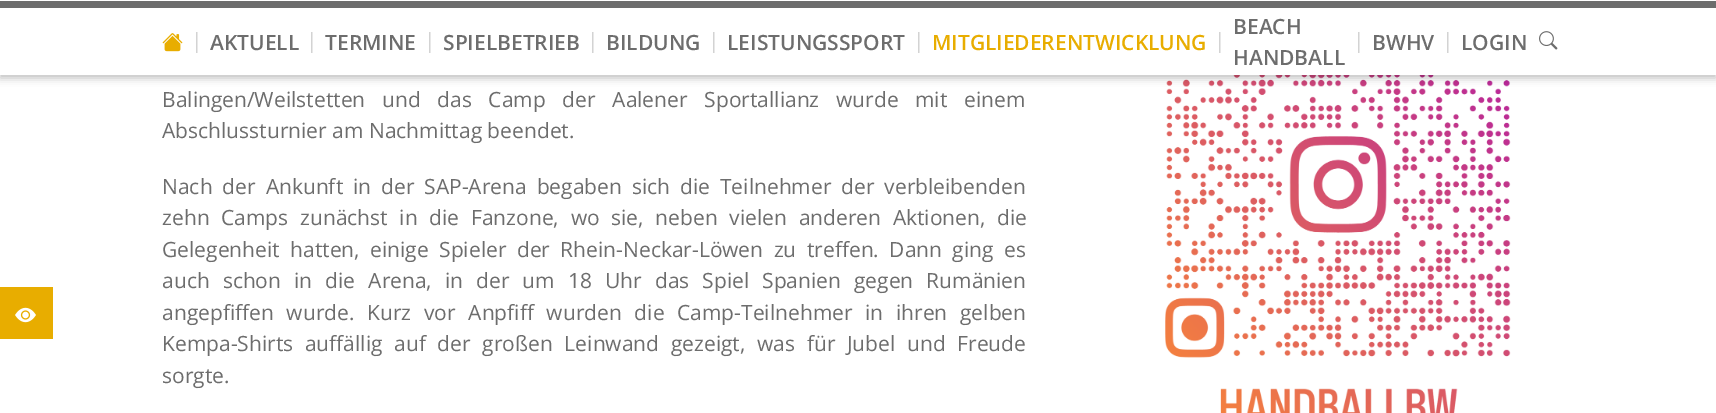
%!PS-Adobe-3.0
%%BoundingBox: 0 0 1716 413
%%LanguageLevel: 3
%%Pages: 1
%%EndComments
%%BeginProlog
/setink { dup -16 bitshift 255 div exch dup -8 bitshift 255 and 255 div exch 255 and 255 div setrgbcolor } def
/usefont { [ exch dup neg 0 0 3 -1 roll 0 0 ] selectfont } def
/setalpha { dup .setfillconstantalpha .setstrokeconstantalpha } def
/rrect { 5 dict begin { /r /h /w /y /x } { exch def } forall
  x r add y moveto x w add y 2 copy h add r arct x w add y h add x 1 index r arct
  x y h add x y r arct x y 2 copy exch w add exch r arct closepath end } def
/softshadow { 12 dict begin { /a /b /q /h /w /y /x } { exch def } forall gsave /was 0 def
  9 -2 -9 { dup b mul 4 div /e exch def 1 sub .425 mul 2.718 exch exp 1 add a .99 .min exch div /now exch def
    1 1 now sub 1 was sub div sub setalpha /was now def
    w h .min e 2 mul add 0 gt { x e sub y e sub w e 2 mul add h e 2 mul add
      q e add b .6 mul add w h .min 2 div e add .min 0 .max rrect fill } if } for grestore end } def
/drawimage { 5 dict begin { /h /w /y /x /name } { exch def } forall
  gsave x y translate w h scale
  w h 8 [w 0 0 h 0 0] name (r) file false 3 colorimage grestore end } def
%%EndProlog
%%BeginSetup
<< /PageSize [1716 413] /PageUsesTransparency true >> setpagedevice
%%EndSetup
%%Page: 1 1
0 .pushpdf14devicefilter
0 413 translate 1 -1 scale
4 setmiterlimit
16#FFFFFF setink
0 0 1716 413 rectfill
16#E8AD00 setink
0 287 53 52 rectfill
(img1.raw) 15 307 21 16 drawimage
(img4.raw) 1165 75 347 338 drawimage
16#000000 setink
0 3 1716 75 0 4 0.25 softshadow
[
    [0 8 1716 67 16#FFFFFF]
    [0 1 1716 7 16#6D6D6D]
    [0 0 1716 1 16#FFFFFF]
] { aload pop setink rectfill } forall
(img2.raw) 162 33 21 19 drawimage
/OpenSans-Regular 21 usefont
16#D3D3D3 setink
191 48 moveto (|) show
/OpenSans-SemiBold 21 usefont
16#6D6D6D setink
210 50 moveto (AKTUELL) show
/OpenSans-Regular 21 usefont
16#D3D3D3 setink
306 48 moveto (|) show
/OpenSans-SemiBold 21 usefont
16#6D6D6D setink
325 50 moveto (TERMINE) show
/OpenSans-Regular 21 usefont
16#D3D3D3 setink
424 48 moveto (|) show
/OpenSans-SemiBold 21 usefont
16#6D6D6D setink
443 50 moveto (SPIELBETRIEB) show
/OpenSans-Regular 21 usefont
16#D3D3D3 setink
587 48 moveto (|) show
/OpenSans-SemiBold 21 usefont
16#6D6D6D setink
606 50 moveto (BILDUNG) show
/OpenSans-Regular 21 usefont
16#D3D3D3 setink
708 48 moveto (|) show
/OpenSans-SemiBold 21 usefont
16#6D6D6D setink
727 50 moveto (LEISTUNGSSPORT) show
/OpenSans-Regular 21 usefont
16#D3D3D3 setink
913 48 moveto (|) show
/OpenSans-SemiBold 21 usefont
16#E8AD00 setink
932 50 moveto (MITGLIEDERENTWICKLUNG) show
/OpenSans-Regular 21 usefont
16#D3D3D3 setink
1214 48 moveto (|) show
/OpenSans-SemiBold 21 usefont
16#6D6D6D setink
1233 34 moveto (BEACH) show
1233 65 moveto (HANDBALL) show
/OpenSans-Regular 21 usefont
16#D3D3D3 setink
1353 48 moveto (|) show
/OpenSans-SemiBold 21 usefont
16#6D6D6D setink
1372 50 moveto (BWHV) show
/OpenSans-Regular 21 usefont
16#D3D3D3 setink
1442 48 moveto (|) show
/OpenSans-SemiBold 21 usefont
16#6D6D6D setink
1461 50 moveto (LOGIN) show
(img3.raw) 1539 31 19 19 drawimage
/OpenSans-Regular 21 usefont
162 107 moveto 11.25 0 32 (Balingen/Weilstetten und das Camp der Aalener Sportallianz wurde mit einem) widthshow
162 138 moveto (Abschlussturnier am Nachmittag beendet.) show
162 194 moveto 4.5 0 32 (Nach der Ankunft in der SAP-Arena begaben sich die Teilnehmer der verbleibenden) widthshow
162 225 moveto 6.25 0 32 (zehn Camps zunächst in die Fanzone, wo sie, neben vielen anderen Aktionen, die) widthshow
162 257 moveto 5 0 32 (Gelegenheit hatten, einige Spieler der Rhein-Neckar-Löwen zu treffen. Dann ging es) widthshow
162 288 moveto 7.6 0 32 (auch schon in die Arena, in der um 18 Uhr das Spiel Spanien gegen Rumänien) widthshow
162 320 moveto 7.25 0 32 (angepfiffen wurde. Kurz vor Anpfiff wurden die Camp-Teilnehmer in ihren gelben) widthshow
162 351 moveto 6.25 0 32 (Kempa-Shirts auffällig auf der großen Leinwand gezeigt, was für Jubel und Freude) widthshow
162 383 moveto (sorgte.) show
.poppdf14devicefilter showpage
%%EOF
